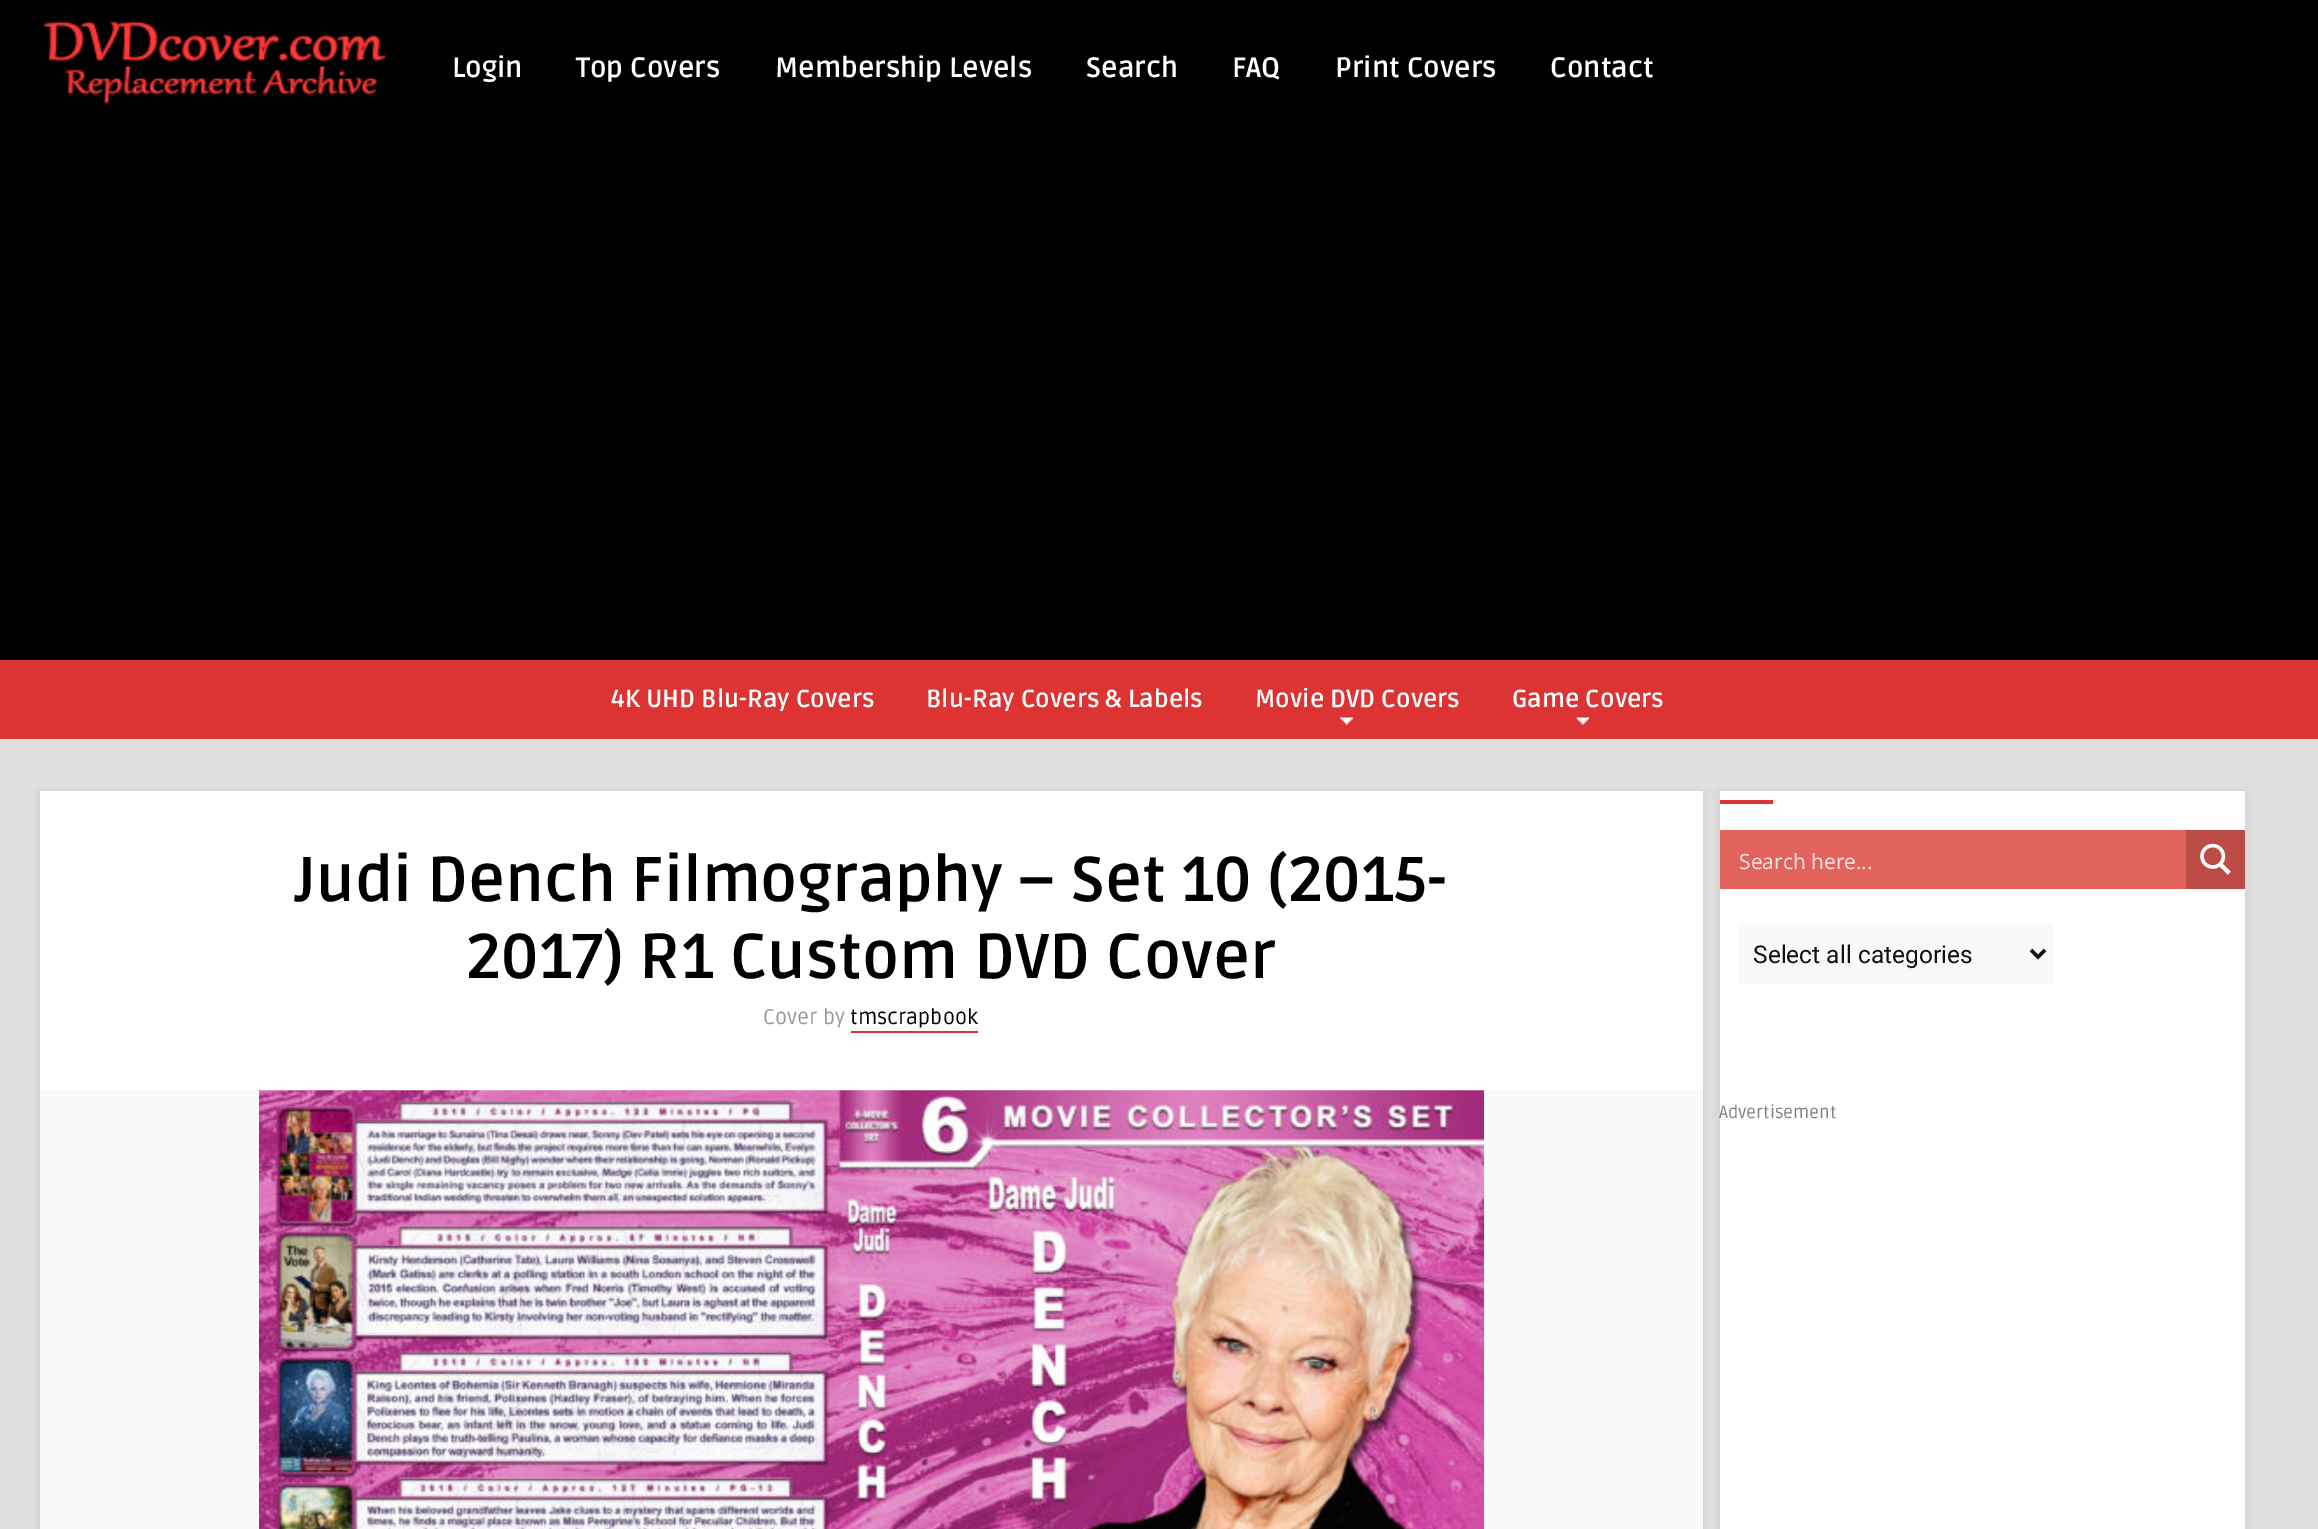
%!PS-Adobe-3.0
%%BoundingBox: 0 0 2318 1529
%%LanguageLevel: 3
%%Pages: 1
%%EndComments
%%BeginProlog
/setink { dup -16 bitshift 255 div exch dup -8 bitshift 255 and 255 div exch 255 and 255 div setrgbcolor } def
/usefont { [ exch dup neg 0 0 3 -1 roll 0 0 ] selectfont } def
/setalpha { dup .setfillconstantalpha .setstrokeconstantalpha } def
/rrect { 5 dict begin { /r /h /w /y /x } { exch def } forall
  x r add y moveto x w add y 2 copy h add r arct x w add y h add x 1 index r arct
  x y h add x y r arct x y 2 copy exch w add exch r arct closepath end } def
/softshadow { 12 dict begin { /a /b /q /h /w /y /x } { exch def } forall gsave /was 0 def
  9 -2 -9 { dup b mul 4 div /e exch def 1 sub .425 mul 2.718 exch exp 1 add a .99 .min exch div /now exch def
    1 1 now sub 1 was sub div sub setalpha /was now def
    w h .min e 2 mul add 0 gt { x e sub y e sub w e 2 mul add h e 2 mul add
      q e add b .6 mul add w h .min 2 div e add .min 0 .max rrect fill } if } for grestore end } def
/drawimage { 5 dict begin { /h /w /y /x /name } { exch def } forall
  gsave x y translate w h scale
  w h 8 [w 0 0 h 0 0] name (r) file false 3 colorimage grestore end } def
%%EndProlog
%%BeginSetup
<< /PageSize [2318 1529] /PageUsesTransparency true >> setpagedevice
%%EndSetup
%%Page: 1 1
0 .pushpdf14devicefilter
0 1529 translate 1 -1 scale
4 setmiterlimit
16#E0E0E0 setink
0 0 2318 1529 rectfill
16#000000 setink
0 0 2318 660 rectfill
(img1.raw) 43 20 342 84 drawimage
/Ruda-Bold 28 usefont
16#FFFFFF setink
[
    [(Login) 452 77]
    [(Top Covers) 576 77]
    [(Membership Levels) 775 77]
    [(Search) 1086 77]
    [(FAQ) 1232 77]
    [(Print Covers) 1335 77]
    [(Contact) 1550 77]
] { aload pop moveto show } forall
16#DD3333 setink
0 660 2318 79 rectfill
/Ruda-Bold 24.5 usefont
16#FFFFFF setink
[
    [(4K UHD Blu-Ray Covers) 611 707]
    [(Blu-Ray Covers & Labels) 926 707]
    [(Movie DVD Covers) 1255 707]
] { aload pop moveto show } forall
(img2.raw) 1340 717 13 8 drawimage
1512 707 moveto (Game Covers) show
(img3.raw) 1576 717 13 8 drawimage
16#000000 setink
40 793 1663 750 0 4.5 0.1 softshadow
16#FFFFFF setink
40 791 1663 299 rectfill
/Ruda-Bold 63 usefont
16#000000 setink
295 901 moveto (Judi Dench Filmography – Set 10 \(2015-) show
466 978 moveto (2017\) R1 Custom DVD Cover) show
/Ruda-Regular 21 usefont
16#94979C setink
763 1024 moveto (Cover by) show
16#000000 setink
850 1024 moveto (tmscrapbook) show
16#DD3333 setink
851 1031 127 2 rectfill
16#F9F9F9 setink
40 1090 1663 439 rectfill
(img4.raw) 259 1090 1225 439 drawimage
16#000000 setink
1720 793 525 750 0 4.5 0.1 softshadow
[
    [1720 791 525 738 16#FFFFFF]
    [1720 800 53 4 16#DD3333]
    [1720 830 466 59 16#E1635C]
] { aload pop setink rectfill } forall
gsave
1740 847 430 30 rectclip
/OpenSans-Regular 21 usefont
16#FBE8E7 setink
1739 869 moveto (Search here...) show
grestore
16#BE4C46 setink
2186 830 59 59 rectfill
(img5.raw) 2200 843 31 32 drawimage
16#F9F9F9 setink
1738 924 315 60 rectfill
16#111111 setink
3.5 setlinewidth
2031 950 moveto 2038 957 lineto 2045 950 lineto stroke
/Roboto-Regular 24.5 usefont
1753 963 moveto (Select all categories) show
/Ruda-Regular 17.5 usefont
16#808080 setink
1719 1118 moveto (Advertisement) show
.poppdf14devicefilter showpage
%%EOF
